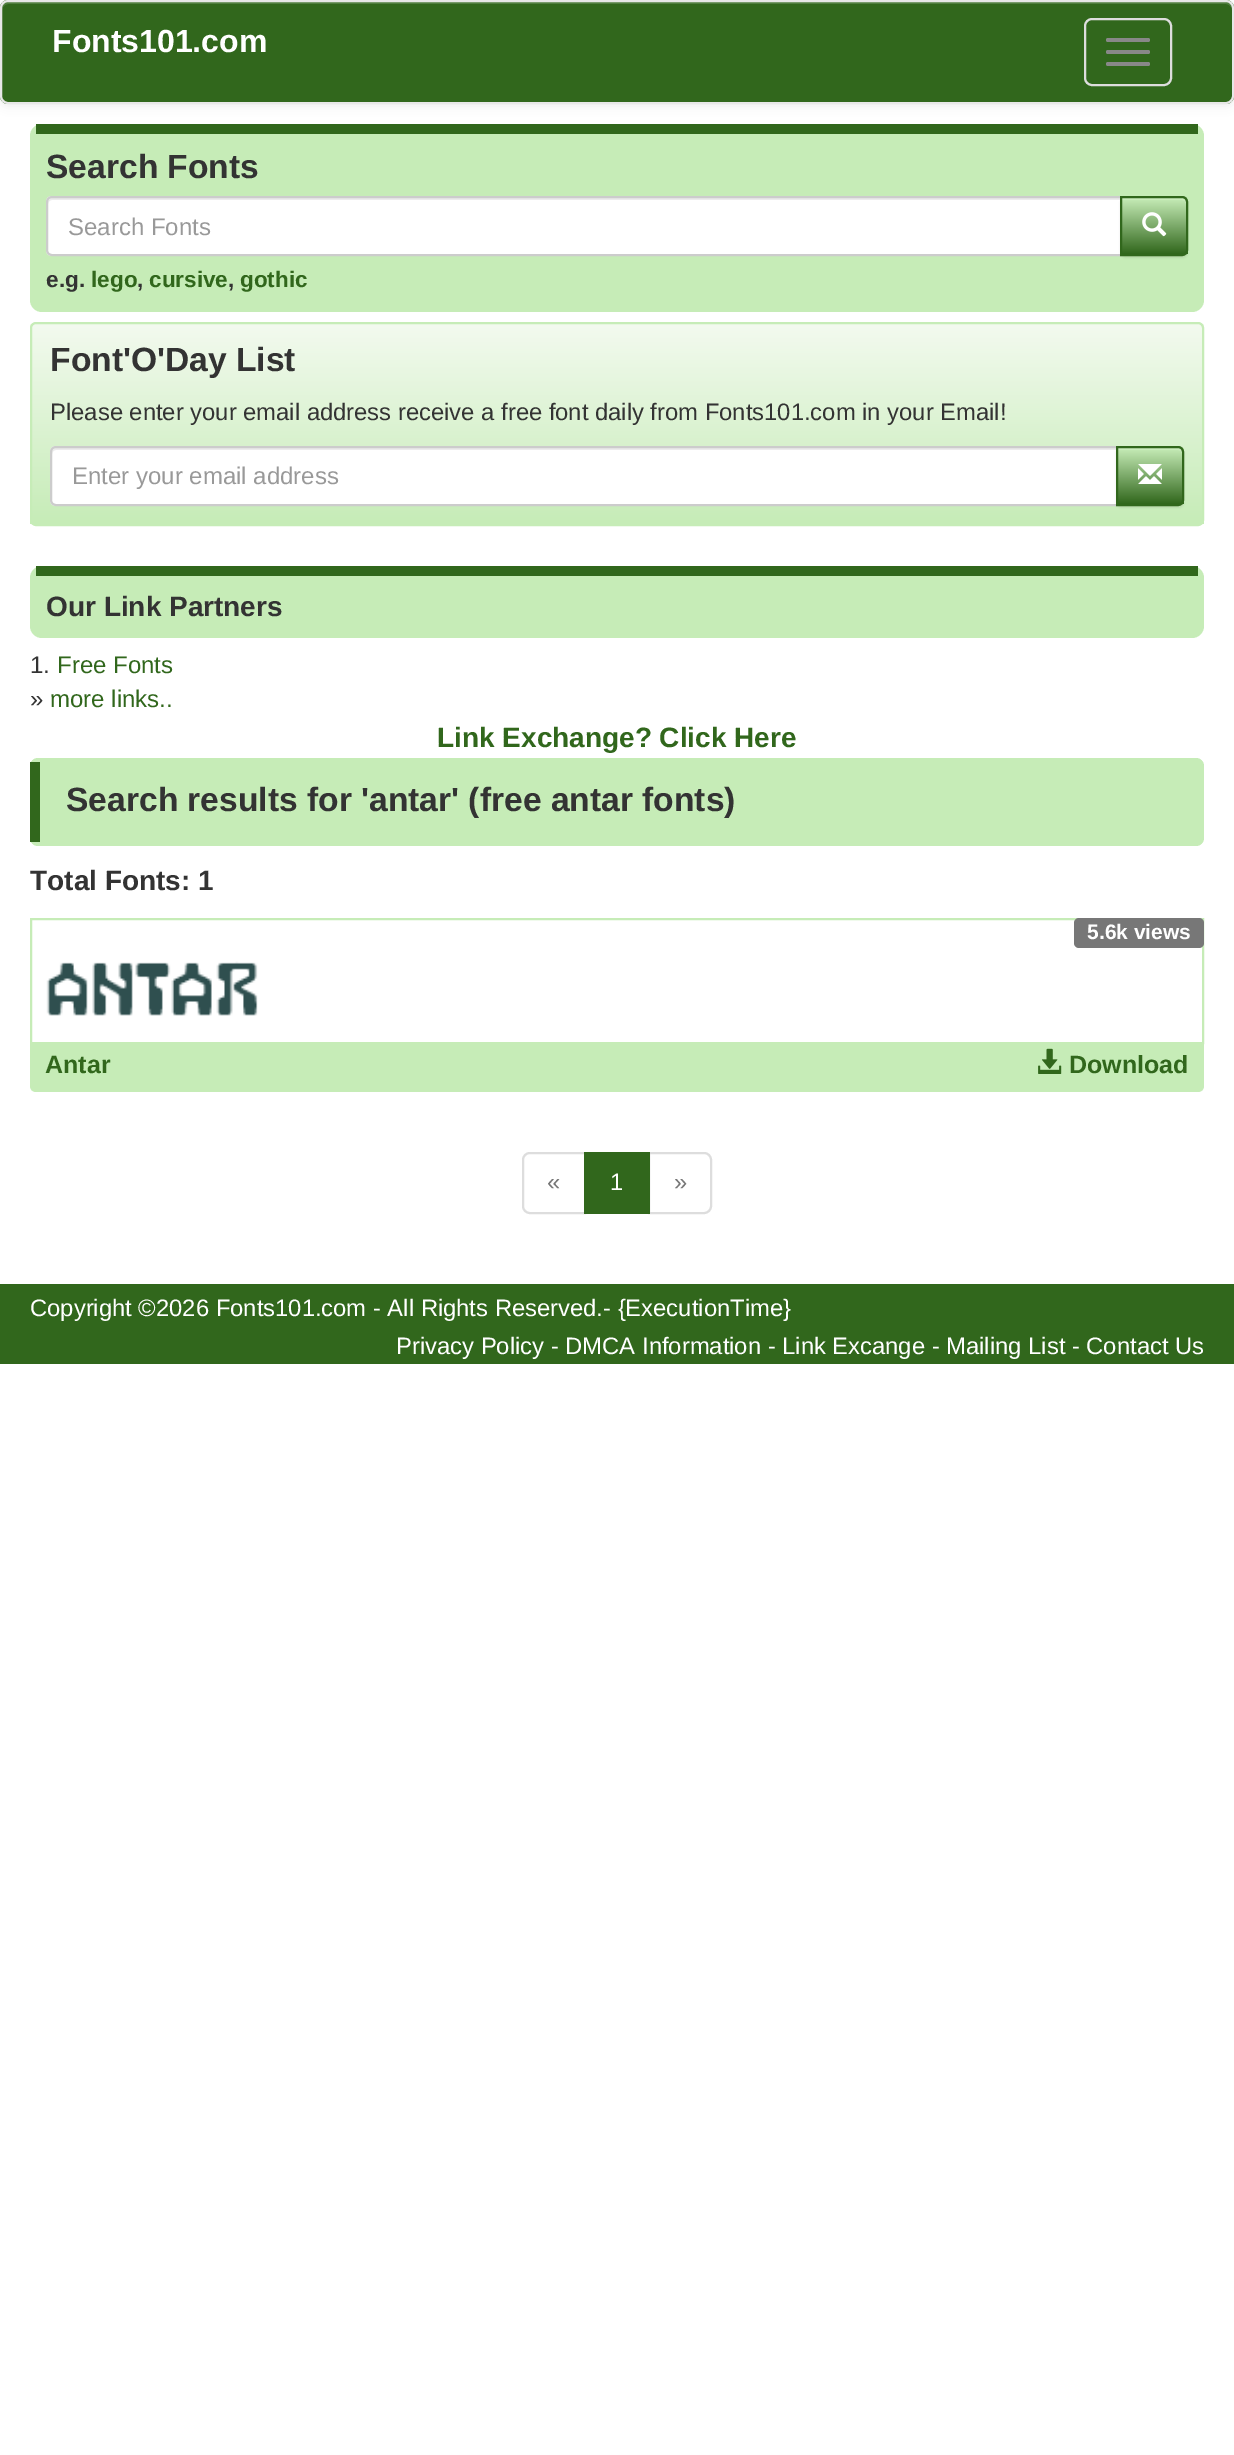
%!PS-Adobe-3.0
%%BoundingBox: 0 0 1234 2455
%%LanguageLevel: 3
%%Pages: 1
%%EndComments
%%BeginProlog
/setink { dup -16 bitshift 255 div exch dup -8 bitshift 255 and 255 div exch 255 and 255 div setrgbcolor } def
/usefont { [ exch dup neg 0 0 3 -1 roll 0 0 ] selectfont } def
/setalpha { dup .setfillconstantalpha .setstrokeconstantalpha } def
/rrect { 5 dict begin { /r /h /w /y /x } { exch def } forall
  x r add y moveto x w add y 2 copy h add r arct x w add y h add x 1 index r arct
  x y h add x y r arct x y 2 copy exch w add exch r arct closepath end } def
/softshadow { 12 dict begin { /a /b /q /h /w /y /x } { exch def } forall gsave /was 0 def
  9 -2 -9 { dup b mul 4 div /e exch def 1 sub .425 mul 2.718 exch exp 1 add a .99 .min exch div /now exch def
    1 1 now sub 1 was sub div sub setalpha /was now def
    w h .min e 2 mul add 0 gt { x e sub y e sub w e 2 mul add h e 2 mul add
      q e add b .6 mul add w h .min 2 div e add .min 0 .max rrect fill } if } for grestore end } def
/drawimage { 5 dict begin { /h /w /y /x /name } { exch def } forall
  gsave x y translate w h scale
  w h 8 [w 0 0 h 0 0] name (r) file false 3 colorimage grestore end } def
%%EndProlog
%%BeginSetup
<< /PageSize [1234 2455] /PageUsesTransparency true >> setpagedevice
%%EndSetup
%%Page: 1 1
0 .pushpdf14devicefilter
0 2455 translate 1 -1 scale
4 setmiterlimit
16#FFFFFF setink
0 0 1234 2455 rectfill
16#000000 setink
0 2 1234 104 8 5 0.07 softshadow
16#31671C setink
0 0 1234 104 8 rrect fill
16#507E3E setink
8 4 moveto 1226 4 lineto 1229 4 1232 7 1232 10 curveto 1232 8 lineto 1232 5 1229 2 1226 2 curveto 8 2 lineto 5 2 2 5 2 8 curveto 2 10 lineto 2 7 5 4 8 4 curveto closepath fill
16#E7E7E7 setink
2 setlinewidth
1 1 1232 102 7 rrect stroke
/LiberationSans-Bold 32 usefont
16#FFFFFF setink
52 52 moveto (Fonts101.com) show
16#DDDDDD setink
1085 19 86 66 7 rrect stroke
16#888888 setink
1106 38 44 4 2 rrect fill
1106 50 44 4 2 rrect fill
1106 62 44 4 2 rrect fill
16#C6ECB7 setink
30 124 1174 188 12 rrect fill
16#31671C setink
36 124 1162 10 rectfill
/LiberationSans-Bold 33.6 usefont
16#333333 setink
46 178 moveto (Search Fonts) show
16#FFFFFF setink
52 196 moveto 1122 196 lineto 1122 256 lineto 52 256 lineto 48.5 256 46 253.5 46 250 curveto 46 202 lineto 46 198.5 48.5 196 52 196 curveto closepath fill
16#ECECEC setink
52 200 moveto 1120 200 lineto 1120 198 lineto 52 198 lineto 50 198 48 200 48 202 curveto 48 204 lineto 48 202 50 200 52 200 curveto closepath fill
16#CCCCCC setink
52 197 moveto 1121 197 lineto 1121 255 lineto 52 255 lineto 49 255 47 253 47 250 curveto 47 202 lineto 47 199 49 197 52 197 curveto closepath stroke
/LiberationSans-Regular 24 usefont
16#999999 setink
68 235 moveto (Search Fonts) show
16#000000 setink
1120 198 68 60 6 1 0.07 softshadow
gsave
1120 196 moveto 1182 196 lineto 1185.5 196 1188 198.5 1188 202 curveto 1188 250 lineto 1188 253.5 1185.5 256 1182 256 curveto 1120 256 lineto closepath clip newpath
gsave 1122 198 moveto 1188 198 lineto 1188 254 lineto 1122 254 lineto closepath clip newpath
<< /ShadingType 2 /ColorSpace /DeviceRGB /Coords [1154 198 1154 254] /Extend [true true] /Function << /FunctionType 2 /Domain [0 1] /C0 [0.776 0.925 0.718] /C1 [0.192 0.404 0.11] /N 1 >> >> shfill grestore
grestore
0.15 setalpha
16#FFFFFF setink
1122 200 moveto 1182 200 lineto 1184 200 1186 202 1186 204 curveto 1186 202 lineto 1186 200 1184 198 1182 198 curveto 1122 198 lineto closepath fill
1 setalpha
16#31671C setink
1121 197 moveto 1182 197 lineto 1185 197 1187 199 1187 202 curveto 1187 250 lineto 1187 253 1185 255 1182 255 curveto 1121 255 lineto closepath stroke
(img1.raw) 1142 212 25 25 drawimage
/LiberationSans-Bold 22.5 usefont
16#333333 setink
46 287 moveto (e.g.) show
16#31671C setink
91 287 moveto (lego) show
16#333333 setink
137 287 moveto (,) show
16#31671C setink
149 287 moveto (cursive) show
16#333333 setink
228 287 moveto (,) show
16#31671C setink
240 287 moveto (gothic) show
gsave
30 322 1174 204 6 rrect clip newpath
gsave 30 324 moveto 1204 324 lineto 1204 524 lineto 30 524 lineto closepath clip newpath
<< /ShadingType 2 /ColorSpace /DeviceRGB /Coords [617 324 617 524] /Extend [true true] /Function << /FunctionType 2 /Domain [0 1] /C0 [0.953 0.98 0.937] /C1 [0.776 0.925 0.718] /N 1 >> >> shfill grestore
grestore
16#C6ECB7 setink
31 323 1172 202 5 rrect stroke
/LiberationSans-Bold 33.6 usefont
16#333333 setink
50 371 moveto (Font'O'Day List) show
/LiberationSans-Regular 23.8 usefont
50 420 moveto (Please enter your email address receive a free font daily from Fonts101.com in your Email!) show
16#FFFFFF setink
56 446 moveto 1118 446 lineto 1118 506 lineto 56 506 lineto 52.5 506 50 503.5 50 500 curveto 50 452 lineto 50 448.5 52.5 446 56 446 curveto closepath fill
16#ECECEC setink
56 450 moveto 1116 450 lineto 1116 448 lineto 56 448 lineto 54 448 52 450 52 452 curveto 52 454 lineto 52 452 54 450 56 450 curveto closepath fill
16#CCCCCC setink
56 447 moveto 1117 447 lineto 1117 505 lineto 56 505 lineto 53 505 51 503 51 500 curveto 51 452 lineto 51 449 53 447 56 447 curveto closepath stroke
/LiberationSans-Regular 24 usefont
16#999999 setink
72 484 moveto (Enter your email address) show
16#000000 setink
1116 448 68 60 6 1 0.07 softshadow
gsave
1116 446 moveto 1178 446 lineto 1181.5 446 1184 448.5 1184 452 curveto 1184 500 lineto 1184 503.5 1181.5 506 1178 506 curveto 1116 506 lineto closepath clip newpath
gsave 1118 448 moveto 1184 448 lineto 1184 504 lineto 1118 504 lineto closepath clip newpath
<< /ShadingType 2 /ColorSpace /DeviceRGB /Coords [1150 448 1150 504] /Extend [true true] /Function << /FunctionType 2 /Domain [0 1] /C0 [0.776 0.925 0.718] /C1 [0.192 0.404 0.11] /N 1 >> >> shfill grestore
grestore
0.15 setalpha
16#FFFFFF setink
1118 450 moveto 1178 450 lineto 1180 450 1182 452 1182 454 curveto 1182 452 lineto 1182 450 1180 448 1178 448 curveto 1118 448 lineto closepath fill
1 setalpha
16#31671C setink
1117 447 moveto 1178 447 lineto 1181 447 1183 449 1183 452 curveto 1183 500 lineto 1183 503 1181 505 1178 505 curveto 1117 505 lineto closepath stroke
(img2.raw) 1138 464 24 20 drawimage
16#C6ECB7 setink
30 566 1174 72 12 rrect fill
16#31671C setink
36 566 1162 10 rectfill
/LiberationSans-Bold 28 usefont
16#333333 setink
46 616 moveto (Our Link Partners) show
/LiberationSans-Regular 24 usefont
30 673 moveto (1.) show
16#31671C setink
57 673 moveto (Free Fonts) show
16#333333 setink
30 707 moveto (») show
16#31671C setink
50 707 moveto (more links..) show
/LiberationSans-Bold 28 usefont
437 747 moveto (Link Exchange? Click Here) show
16#C6ECB7 setink
30 758 1174 88 8 rrect fill
16#31671C setink
30 762 10 80 rectfill
/LiberationSans-Bold 33.6 usefont
16#333333 setink
66 811 moveto (Search results for 'antar' \(free antar fonts\)) show
/LiberationSans-Bold 28 usefont
30 890 moveto (Total Fonts: 1) show
16#C6ECB7 setink
31 919 1172 124 rectstroke
(img3.raw) 46 961 212 55 drawimage
16#777777 setink
1074 918 130 30 5 rrect fill
/LiberationSans-Bold 21 usefont
16#FFFFFF setink
1087 939 moveto (5.6k views) show
16#C6ECB7 setink
30 1044 moveto 1204 1044 lineto 1204 1086 lineto 1204 1089.5 1201.5 1092 1198 1092 curveto 36 1092 lineto 32.5 1092 30 1089.5 30 1086 curveto closepath fill
/LiberationSans-Bold 25 usefont
16#31671C setink
45 1073 moveto (Antar) show
(img4.raw) 1038 1048 24 26 drawimage
1069 1073 moveto (Download) show
16#DDDDDD setink
530 1153 moveto 585 1153 lineto 585 1213 lineto 530 1213 lineto 526 1213 523 1210 523 1206 curveto 523 1160 lineto 523 1156 526 1153 530 1153 curveto closepath stroke
/LiberationSans-Regular 23.8 usefont
16#777777 setink
547 1190 moveto («) show
16#DDDDDD setink
649 1153 moveto 704 1153 lineto 708 1153 711 1156 711 1160 curveto 711 1206 lineto 711 1210 708 1213 704 1213 curveto 649 1213 lineto closepath stroke
16#31671C setink
584 1152 66 62 rectfill
16#FFFFFF setink
610 1190 moveto (1) show
16#777777 setink
674 1190 moveto (») show
16#31671C setink
0 1284 1234 80 rectfill
16#FFFFFF setink
30 1316 moveto (Copyright ©2026 Fonts101.com - All Rights Reserved.- {ExecutionTime}) show
396 1354 moveto (Privacy Policy - DMCA Information - Link Excange - Mailing List - Contact Us) show
.poppdf14devicefilter showpage
%%EOF
